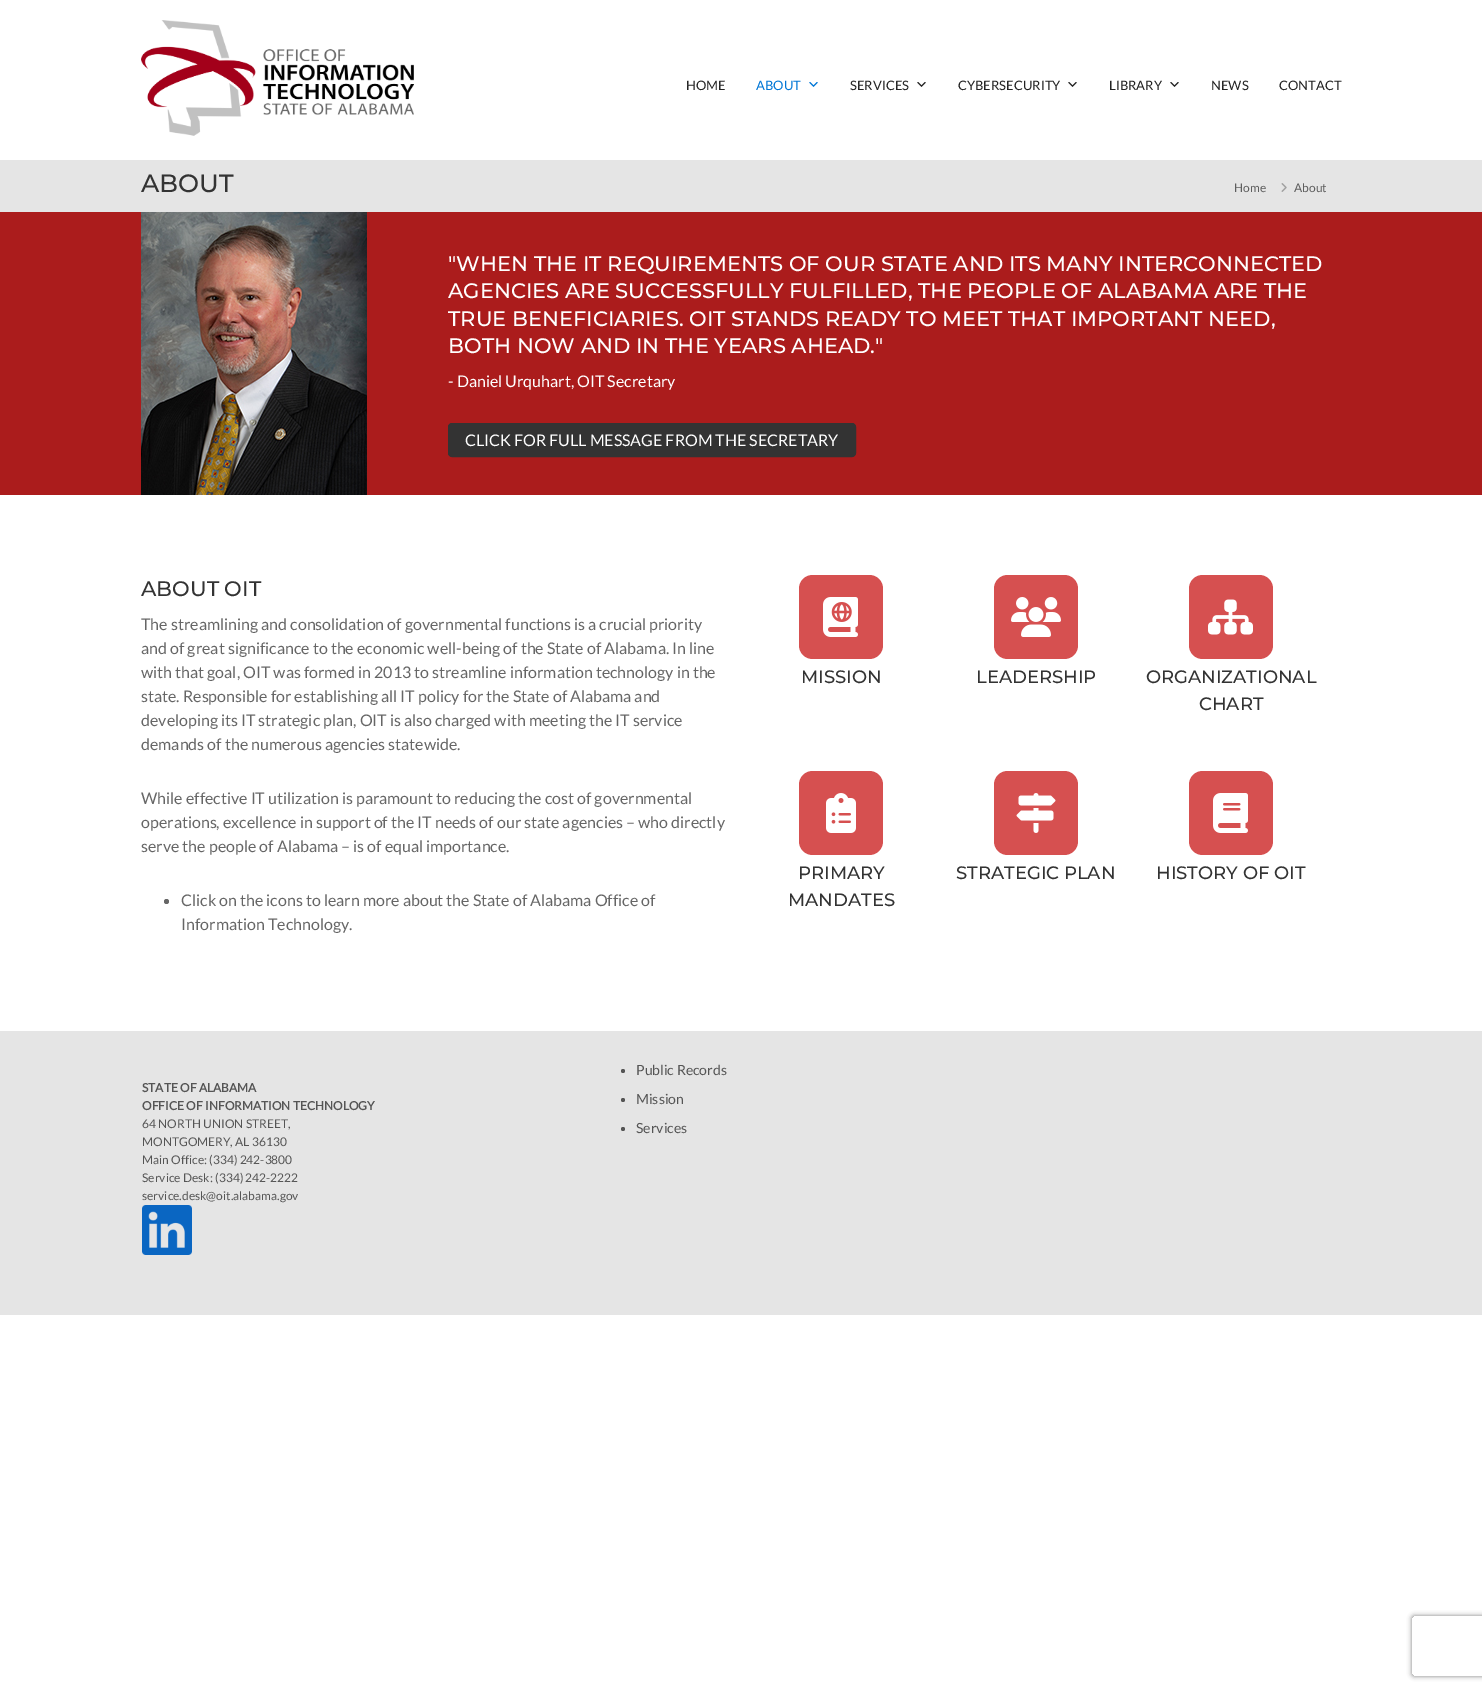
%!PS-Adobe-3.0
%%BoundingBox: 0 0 1482 1690
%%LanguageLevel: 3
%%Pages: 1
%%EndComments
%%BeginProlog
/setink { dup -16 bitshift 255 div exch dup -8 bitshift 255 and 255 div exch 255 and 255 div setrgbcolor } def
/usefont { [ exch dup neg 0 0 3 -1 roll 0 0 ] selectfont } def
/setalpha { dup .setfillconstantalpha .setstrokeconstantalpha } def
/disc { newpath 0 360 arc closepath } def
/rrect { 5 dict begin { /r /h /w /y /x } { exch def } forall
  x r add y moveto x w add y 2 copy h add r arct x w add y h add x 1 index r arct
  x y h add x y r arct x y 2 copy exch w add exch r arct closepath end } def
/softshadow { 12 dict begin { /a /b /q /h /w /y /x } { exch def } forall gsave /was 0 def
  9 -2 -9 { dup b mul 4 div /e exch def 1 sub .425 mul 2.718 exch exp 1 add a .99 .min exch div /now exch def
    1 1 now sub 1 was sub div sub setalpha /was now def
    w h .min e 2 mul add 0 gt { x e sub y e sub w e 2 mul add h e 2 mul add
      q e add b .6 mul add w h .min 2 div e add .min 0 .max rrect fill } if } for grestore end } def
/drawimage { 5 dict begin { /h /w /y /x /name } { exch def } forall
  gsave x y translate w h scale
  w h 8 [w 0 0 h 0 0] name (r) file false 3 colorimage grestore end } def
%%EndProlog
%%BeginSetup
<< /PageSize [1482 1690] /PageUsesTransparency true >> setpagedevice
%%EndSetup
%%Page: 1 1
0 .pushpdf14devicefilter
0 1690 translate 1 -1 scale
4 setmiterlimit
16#FFFFFF setink
0 0 1482 1690 rectfill
(img1.raw) 141 20 273 116 drawimage
/Lato-Regular 13 usefont
16#222222 setink
686 90 moveto (HOME) show
16#0076D6 setink
756 90 moveto (ABOUT) show
(img2.raw) 809 82 9 5 drawimage
16#222222 setink
850 90 moveto (SERVICES) show
(img3.raw) 917 82 9 5 drawimage
958 90 moveto (CYBERSECURITY) show
(img3.raw) 1068 82 9 5 drawimage
1109 90 moveto (LIBRARY) show
(img3.raw) 1170 82 9 5 drawimage
1211 90 moveto (NEWS) show
1279 90 moveto (CONTACT) show
16#E5E5E5 setink
0 160 1482 52 rectfill
/Montserrat-Medium 25 usefont
16#333333 setink
141 192 moveto (ABOUT) show
/Lato-Regular 12 usefont
16#5E5E5E setink
1234 192 moveto (Home) show
(img4.raw) 1281 183 6 9 drawimage
1294 192 moveto (About) show
16#AB1C1C setink
0 212 1482 283 rectfill
(img5.raw) 141 212 226 283 drawimage
/Montserrat-Medium 21 usefont
16#FFFFFF setink
[
    [("WHEN THE IT REQUIREMENTS OF OUR STATE AND ITS MANY INTERCONNECTED) 448 271]
    [(AGENCIES ARE SUCCESSFULLY FULFILLED, THE PEOPLE OF ALABAMA ARE THE) 448 298]
    [(TRUE BENEFICIARIES. OIT STANDS READY TO MEET THAT IMPORTANT NEED,) 448 326]
    [(BOTH NOW AND IN THE YEARS AHEAD.") 448 353]
] { aload pop moveto show } forall
/Lato-Regular 16 usefont
448 387 moveto (- Daniel Urquhart, OIT Secretary) show
16#333333 setink
448.5 423.5 407 33 3.5 rrect gsave fill grestore
stroke
16#FFFFFF setink
465 446 moveto (CLICK FOR FULL MESSAGE FROM THE SECRETARY) show
/Montserrat-Medium 21 usefont
16#333333 setink
141 596 moveto (ABOUT OIT) show
/Lato-Regular 16 usefont
16#666666 setink
[
    [(The streamlining and consolidation of governmental functions is a crucial priority) 141 630]
    [(and of great significance to the economic well-being of the State of Alabama. In line) 141 654]
    [(with that goal, OIT was formed in 2013 to streamline information technology in the) 141 678]
    [(state. Responsible for establishing all IT policy for the State of Alabama and) 141 702]
    [(developing its IT strategic plan, OIT is also charged with meeting the IT service) 141 726]
    [(demands of the numerous agencies statewide.) 141 750]
    [(While effective IT utilization is paramount to reducing the cost of governmental) 141 804]
    [(operations, excellence in support of the IT needs of our state agencies – who directly) 141 828]
    [(serve the people of Alabama – is of equal importance.) 141 852]
] { aload pop moveto show } forall
166.5 901.5 2.5 disc fill
181 906 moveto (Click on the icons to learn more about the State of Alabama Office of) show
181 930 moveto (Information Technology.) show
16#D65050 setink
883 645 moveto 883 653 877 659 869 659 curveto 813 659 lineto 805 659 799 653 799 645 curveto 799 589 lineto 799 581 805 575 813 575 curveto 869 575 lineto 877 575 883 581 883 589 curveto closepath fill
(img6.raw) 823 597 35 40 drawimage
/Montserrat-Medium 18 usefont
16#333333 setink
801 683 moveto (MISSION) show
16#D65050 setink
1078 645 moveto 1078 653 1072 659 1064 659 curveto 1008 659 lineto 1000 659 994 653 994 645 curveto 994 589 lineto 994 581 1000 575 1008 575 curveto 1064 575 lineto 1072 575 1078 581 1078 589 curveto closepath fill
(img7.raw) 1011 597 50 40 drawimage
16#333333 setink
976 683 moveto (LEADERSHIP) show
16#D65050 setink
1273 645 moveto 1273 653 1267 659 1259 659 curveto 1203 659 lineto 1195 659 1189 653 1189 645 curveto 1189 589 lineto 1189 581 1195 575 1203 575 curveto 1259 575 lineto 1267 575 1273 581 1273 589 curveto closepath fill
(img8.raw) 1208 599 45 36 drawimage
16#333333 setink
1146 683 moveto (ORGANIZATIONAL) show
1199 710 moveto (CHART) show
16#D65050 setink
883 841 moveto 883 849 877 855 869 855 curveto 813 855 lineto 805 855 799 849 799 841 curveto 799 785 lineto 799 777 805 771 813 771 curveto 869 771 lineto 877 771 883 777 883 785 curveto closepath fill
(img9.raw) 826 793 30 40 drawimage
16#333333 setink
798 879 moveto (PRIMARY) show
788 906 moveto (MANDATES) show
16#D65050 setink
1078 841 moveto 1078 849 1072 855 1064 855 curveto 1008 855 lineto 1000 855 994 849 994 841 curveto 994 785 lineto 994 777 1000 771 1008 771 curveto 1064 771 lineto 1072 771 1078 777 1078 785 curveto closepath fill
(img10.raw) 1016 793 40 40 drawimage
16#333333 setink
956 879 moveto (STRATEGIC PLAN) show
16#D65050 setink
1273 841 moveto 1273 849 1267 855 1259 855 curveto 1203 855 lineto 1195 855 1189 849 1189 841 curveto 1189 785 lineto 1189 777 1195 771 1203 771 curveto 1259 771 lineto 1267 771 1273 777 1273 785 curveto closepath fill
(img11.raw) 1213 793 35 40 drawimage
16#333333 setink
1156 879 moveto (HISTORY OF OIT) show
16#E5E5E5 setink
0 1031 1482 284 rectfill
/Lato-Bold 12 usefont
16#555555 setink
142 1092 moveto (STATE OF ALABAMA) show
142 1110 moveto (OFFICE OF INFORMATION TECHNOLOGY) show
/Lato-Regular 12 usefont
[
    [(64 NORTH UNION STREET,) 142 1128]
    [(MONTGOMERY, AL 36130) 142 1146]
    [(Main Office: \(334\) 242-3800) 142 1164]
    [(Service Desk: \(334\) 242-2222) 142 1182]
    [(service.desk@oit.alabama.gov) 142 1200]
] { aload pop moveto show } forall
(img12.raw) 142 1205 50 50 drawimage
623 1071 2 disc fill
/Lato-Regular 14 usefont
636 1075 moveto (Public Records) show
623 1100 2 disc fill
636 1104 moveto (Mission) show
623 1129 2 disc fill
636 1133 moveto (Services) show
gsave
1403 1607 moveto 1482 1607 lineto 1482 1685 lineto 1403 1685 lineto closepath 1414 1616 moveto 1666 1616 lineto 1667 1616 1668 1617 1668 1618 curveto 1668 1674 lineto 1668 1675 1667 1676 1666 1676 curveto 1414 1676 lineto 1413 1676 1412 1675 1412 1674 curveto 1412 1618 lineto 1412 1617 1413 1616 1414 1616 curveto closepath eoclip newpath
16#808080 setink
1412 1616 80 60 2 2.5 1 softshadow
grestore
.poppdf14devicefilter showpage
%%EOF
